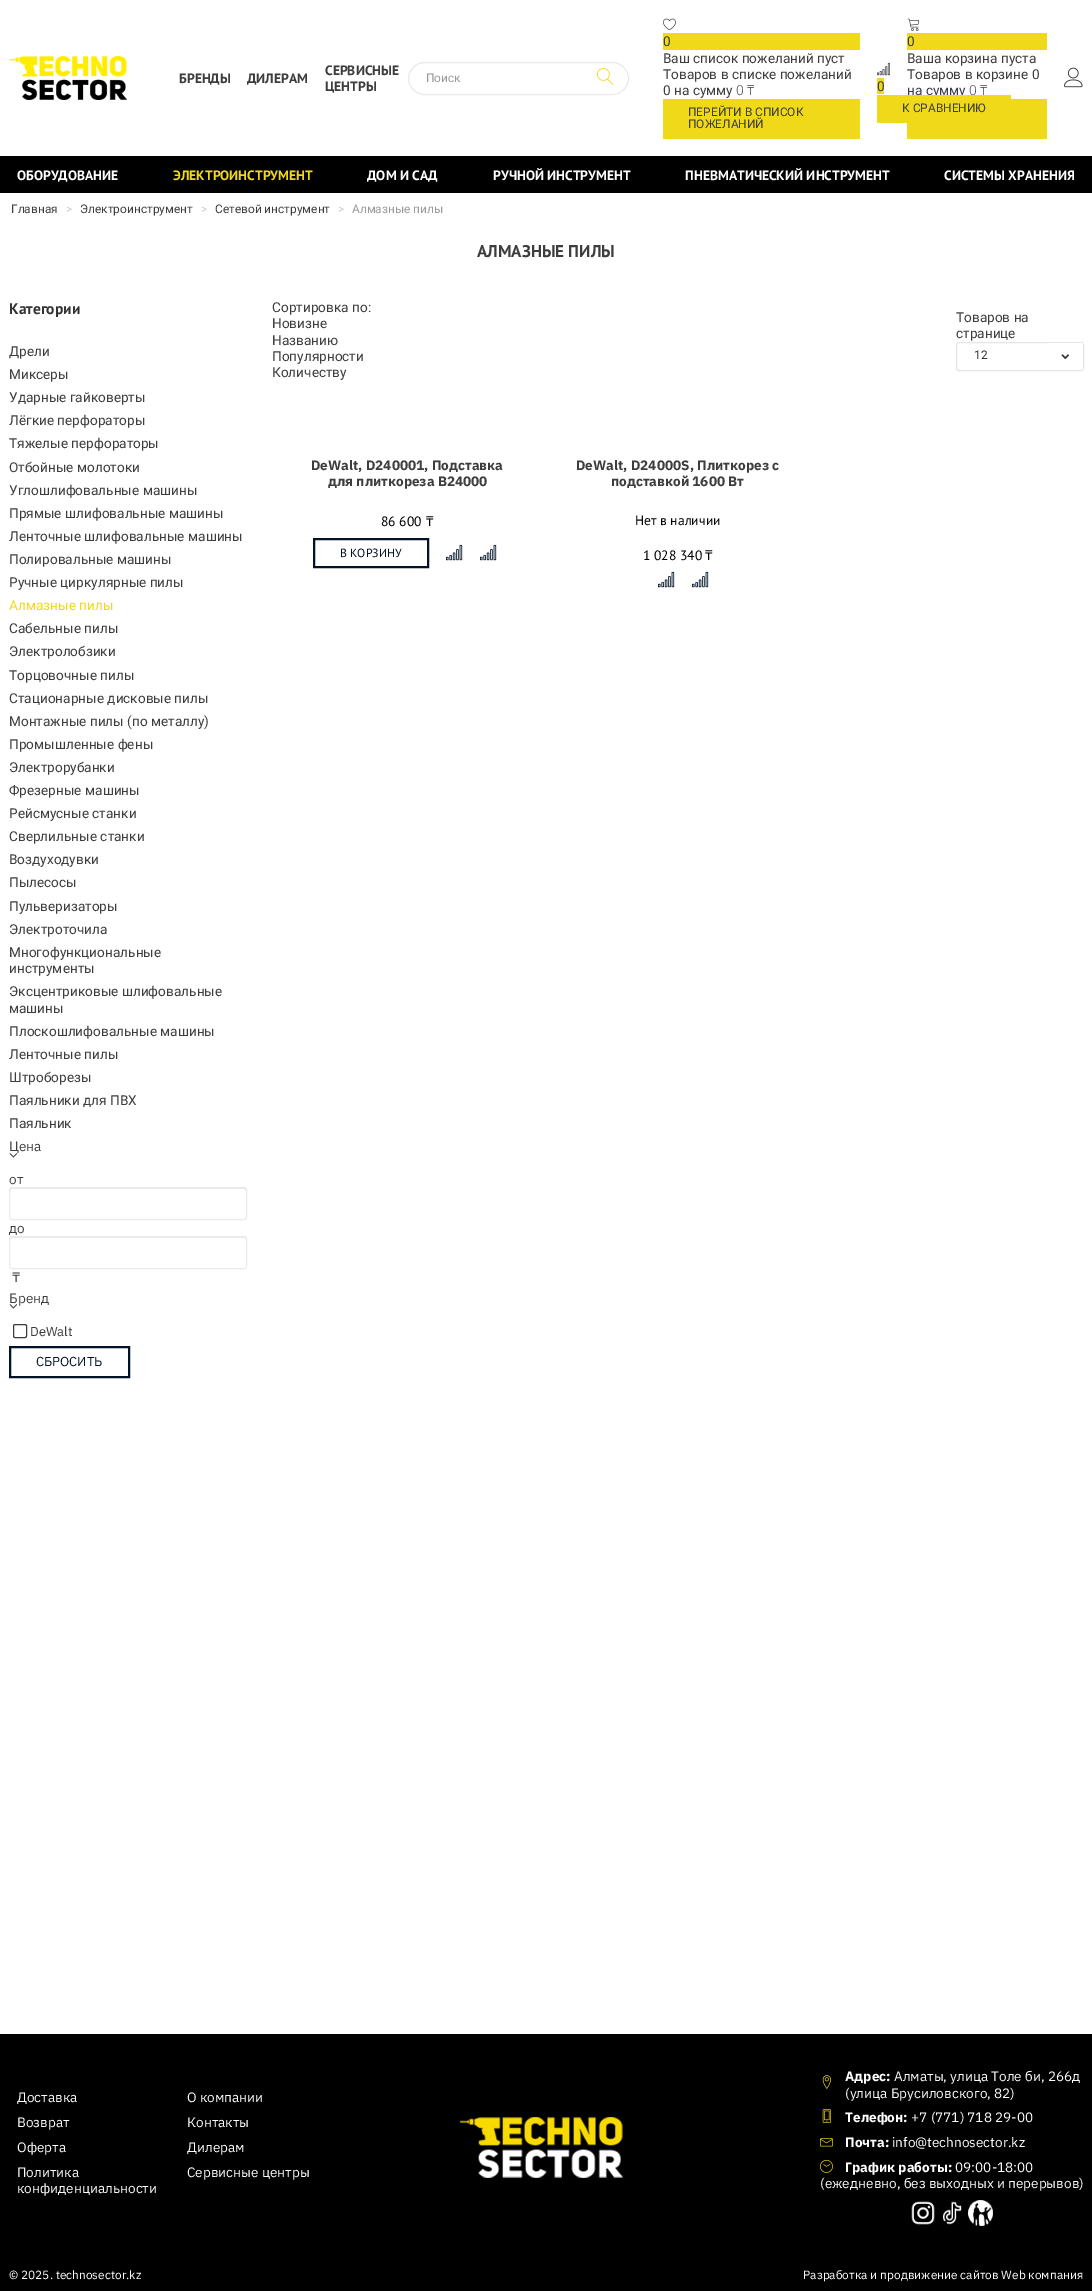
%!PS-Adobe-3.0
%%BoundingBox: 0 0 1092 2291
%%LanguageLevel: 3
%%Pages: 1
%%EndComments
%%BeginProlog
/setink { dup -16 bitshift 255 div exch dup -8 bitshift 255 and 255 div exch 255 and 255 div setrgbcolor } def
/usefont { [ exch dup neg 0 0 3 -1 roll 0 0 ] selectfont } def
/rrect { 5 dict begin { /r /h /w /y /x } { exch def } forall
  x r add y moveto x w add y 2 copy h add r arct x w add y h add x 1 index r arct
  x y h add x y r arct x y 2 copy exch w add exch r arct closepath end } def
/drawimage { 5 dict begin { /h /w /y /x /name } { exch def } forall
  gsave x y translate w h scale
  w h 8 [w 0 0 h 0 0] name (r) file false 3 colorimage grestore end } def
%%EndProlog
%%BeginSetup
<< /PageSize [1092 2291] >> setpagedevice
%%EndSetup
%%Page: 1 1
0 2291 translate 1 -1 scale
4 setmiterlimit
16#FFFFFF setink
0 0 1092 2291 rectfill
(img1.raw) 9 56 118 44 drawimage
/PTSans-Bold 13.6 usefont
16#3D3D3D setink
[
    [(БРЕНДЫ) 179 83]
    [(ДИЛЕРАМ) 247 83]
    [(СЕРВИСНЫЕ) 325 75]
    [(ЦЕНТРЫ) 325 91]
] { aload pop moveto show } forall
16#EAEAEA setink
408.5 62.5 220 32 16 rrect stroke
/Roboto-Regular 11.9 usefont
16#999999 setink
426 82 moveto (Поиск) show
(img2.raw) 597 68 17 17 drawimage
(img3.raw) 663 18 13 13 drawimage
16#F0D919 setink
663 33 197 17 rectfill
/Roboto-Regular 13.6 usefont
16#3D3D3D setink
[
    [(0) 663 46]
    [(Ваш список пожеланий пуст) 663 63]
    [(Товаров в списке пожеланий) 663 79]
    [(0 на сумму) 663 95]
] { aload pop moveto show } forall
/NotoSans-Light 13.6 usefont
736 95 moveto (0 ₸) show
16#F0D919 setink
663 99 197 40 rectfill
/Roboto-Regular 11.9 usefont
16#3D3D3D setink
688 116 moveto (ПЕРЕЙТИ В СПИСОК) show
688 128 moveto (ПОЖЕЛАНИЙ) show
(img4.raw) 907 18 13 13 drawimage
16#F0D919 setink
907 33 140 17 rectfill
/Roboto-Regular 13.6 usefont
16#3D3D3D setink
[
    [(0) 907 46]
    [(Ваша корзина пуста) 907 63]
    [(Товаров в корзине 0) 907 79]
    [(на сумму) 907 95]
] { aload pop moveto show } forall
/NotoSans-Light 13.6 usefont
969 95 moveto (0 ₸) show
16#F0D919 setink
907 99 140 40 rectfill
(img5.raw) 1064 67 19 21 drawimage
(img6.raw) 877 62 13 14 drawimage
877 78 7 16 rectfill
/Roboto-Regular 13.6 usefont
16#3D3D3D setink
877 91 moveto (0) show
16#F0D919 setink
877 95 134 28 rectfill
/Roboto-Regular 11.9 usefont
16#3D3D3D setink
902 112 moveto (К СРАВНЕНИЮ) show
16#000000 setink
0 156 1092 37 rectfill
/PTSans-Bold 13.6 usefont
16#FFFFFF setink
17 180 moveto (ОБОРУДОВАНИЕ) show
16#F0D919 setink
173 180 moveto (ЭЛЕКТРОИНСТРУМЕНТ) show
16#FFFFFF setink
[
    [(ДОМ И САД) 367 180]
    [(РУЧНОЙ ИНСТРУМЕНТ) 493 180]
    [(ПНЕВМАТИЧЕСКИЙ ИНСТРУМЕНТ) 685 180]
    [(СИСТЕМЫ ХРАНЕНИЯ) 944 180]
] { aload pop moveto show } forall
/Roboto-Regular 11.9 usefont
16#3D3D3D setink
11 213 moveto (Главная) show
16#CCCCCC setink
66 213 moveto (>) show
16#3D3D3D setink
80 213 moveto (Электроинструмент) show
16#CCCCCC setink
201 213 moveto (>) show
16#3D3D3D setink
215 213 moveto (Сетевой инструмент) show
16#CCCCCC setink
338 213 moveto (>) show
16#999999 setink
352 213 moveto (Алмазные пилы) show
/PTSans-Bold 17 usefont
16#3D3D3D setink
477 257 moveto (АЛМАЗНЫЕ ПИЛЫ) show
/PTSans-Bold 15.5 usefont
16#333333 setink
9 314 moveto (Категории) show
/Roboto-Regular 13.6 usefont
16#3D3D3D setink
[
    [(Дрели) 9 356]
    [(Миксеры) 9 379]
    [(Ударные гайковерты) 9 402]
    [(Лёгкие перфораторы) 9 425]
    [(Тяжелые перфораторы) 9 448]
    [(Отбойные молотоки) 9 472]
    [(Углошлифовальные машины) 9 495]
    [(Прямые шлифовальные машины) 9 518]
    [(Ленточные шлифовальные машины) 9 541]
    [(Полировальные машины) 9 564]
    [(Ручные циркулярные пилы) 9 587]
] { aload pop moveto show } forall
16#F0D919 setink
9 610 moveto (Алмазные пилы) show
16#3D3D3D setink
[
    [(Сабельные пилы) 9 633]
    [(Электролобзики) 9 656]
    [(Торцовочные пилы) 9 680]
    [(Стационарные дисковые пилы) 9 703]
    [(Монтажные пилы \(по металлу\)) 9 726]
    [(Промышленные фены) 9 749]
    [(Электрорубанки) 9 772]
    [(Фрезерные машины) 9 795]
    [(Рейсмусные станки) 9 818]
    [(Сверлильные станки) 9 841]
    [(Воздуходувки) 9 864]
    [(Пылесосы) 9 887]
    [(Пульверизаторы) 9 911]
    [(Электроточила) 9 934]
    [(Многофункциональные) 9 957]
    [(инструменты) 9 973]
    [(Эксцентриковые шлифовальные) 9 996]
    [(машины) 9 1013]
    [(Плоскошлифовальные машины) 9 1036]
    [(Ленточные пилы) 9 1059]
    [(Штроборезы) 9 1082]
    [(Паяльники для ПВХ) 9 1105]
    [(Паяльник) 9 1128]
] { aload pop moveto show } forall
/IBMPlexSans-Regular 13.6 usefont
9 1151 moveto (Цена) show
(img7.raw) 9 1153 9 5 drawimage
9 1184 moveto (от) show
16#ECECEC setink
12 1189 moveto 244 1189 lineto 245 1189 246 1190 246 1191 curveto 246 1189 lineto 244 1188 lineto 12 1188 lineto 10 1188 10 1190 10 1191 curveto 10 1190 11 1189 12 1189 curveto closepath fill
16#EAEAEA setink
9.5 1187.5 237 32 2.5 rrect stroke
16#3D3D3D setink
9 1233 moveto (до) show
16#ECECEC setink
12 1238 moveto 244 1238 lineto 245 1238 246 1239 246 1240 curveto 246 1238 lineto 244 1237 lineto 12 1237 lineto 10 1237 10 1239 10 1240 curveto 10 1239 11 1238 12 1238 curveto closepath fill
16#EAEAEA setink
9.5 1236.5 237 32 2.5 rrect stroke
16#3D3D3D setink
12 1282 moveto (₸) show
9 1303 moveto (Бренд) show
(img8.raw) 9 1304 9 5 drawimage
13.5 1324.5 13 13 1.5 rrect stroke
/IBMPlexSans-Regular 13 usefont
30 1336 moveto (DeWalt) show
16#011327 setink
2 setlinewidth
10 1347 119 30 rectstroke
36 1366 moveto (СБРОСИТЬ) show
/Roboto-Regular 13.6 usefont
16#3D3D3D setink
[
    [(Сортировка по:) 272 312]
    [(Новизне) 272 328]
    [(Названию) 272 345]
    [(Популярности) 272 361]
    [(Количеству) 272 377]
    [(Товаров на) 956 322]
    [(странице) 956 338]
] { aload pop moveto show } forall
16#E5E5E5 setink
1 setlinewidth
956.5 342.5 127 28 2.5 rrect stroke
/Roboto-Regular 11.9 usefont
16#333333 setink
974 359 moveto (12) show
16#FFFFFF setink
1049 343 moveto 1081 343 lineto 1082 343 1083 344 1083 345 curveto 1083 368 lineto 1083 369 1082 370 1081 370 curveto 1049 370 lineto closepath fill
(img9.raw) 1061 354 8 6 drawimage
/IBMPlexSans-Bold 13.6 usefont
16#3D3D3D setink
311 470 moveto (DeWalt, D240001, Подставка) show
328 486 moveto (для плиткореза В24000) show
/PTSans-Regular 13.6 usefont
16#000000 setink
381 526 moveto (86 600) show
/NotoSans-Regular 13.6 usefont
426 526 moveto (₸) show
16#011327 setink
2 setlinewidth
314 539 114 28 rectstroke
/PTSans-Regular 11.9 usefont
340 557 moveto (В КОРЗИНУ) show
(img10.raw) 446 544 17 17 drawimage
(img10.raw) 480 544 17 17 drawimage
/IBMPlexSans-Bold 13.6 usefont
16#3D3D3D setink
576 470 moveto (DeWalt, D24000S, Плиткорез с) show
611 486 moveto (подставкой 1600 Вт) show
/PTSans-Regular 13.6 usefont
16#000000 setink
635 525 moveto (Нет в наличии) show
643 560 moveto (1 028 340) show
/NotoSans-Regular 13.6 usefont
705 560 moveto (₸) show
(img10.raw) 658 571 17 17 drawimage
(img10.raw) 692 571 17 17 drawimage
0 2034 1092 257 rectfill
/IBMPlexSans-Regular 13.6 usefont
16#FFFFFF setink
[
    [(Доставка) 17 2102]
    [(О компании) 187 2102]
    [(Возврат) 17 2127]
    [(Контакты) 187 2127]
    [(Оферта) 17 2152]
    [(Дилерам) 187 2152]
    [(Политика) 17 2177]
    [(конфиденциальности) 17 2193]
    [(Сервисные центры) 187 2177]
] { aload pop moveto show } forall
(img11.raw) 460 2117 163 61 drawimage
(img12.raw) 822 2075 9 14 drawimage
/IBMPlexSans-Bold 13.6 usefont
845 2081 moveto (Адрес:) show
/IBMPlexSans-Regular 13.6 usefont
894 2081 moveto (Алматы, улица Толе би, 266д) show
845 2098 moveto (\(улица Брусиловского, 82\)) show
(img13.raw) 822 2109 9 14 drawimage
/IBMPlexSans-Bold 13.6 usefont
845 2122 moveto (Телефон:) show
/IBMPlexSans-Regular 13.6 usefont
911 2122 moveto (+7 \(771\) 718 29-00) show
(img14.raw) 820 2138 13 9 drawimage
/IBMPlexSans-Bold 13.6 usefont
845 2147 moveto (Почта:) show
/IBMPlexSans-Regular 13.6 usefont
892 2147 moveto (info@technosector.kz) show
(img15.raw) 820 2159 13 14 drawimage
/IBMPlexSans-Bold 13.6 usefont
845 2172 moveto (График работы:) show
/IBMPlexSans-Regular 13.6 usefont
955 2172 moveto (09:00-18:00) show
820 2188 moveto (\(ежедневно, без выходных и перерывов\)) show
(img16.raw) 911 2201 24 24 drawimage
(img17.raw) 943 2201 19 24 drawimage
(img18.raw) 968 2200 25 26 drawimage
/IBMPlexSans-Regular 11.9 usefont
9 2279 moveto (© 2025. technosector.kz) show
803 2279 moveto (Разработка и продвижение сайтов Web компания) show
showpage
%%EOF
